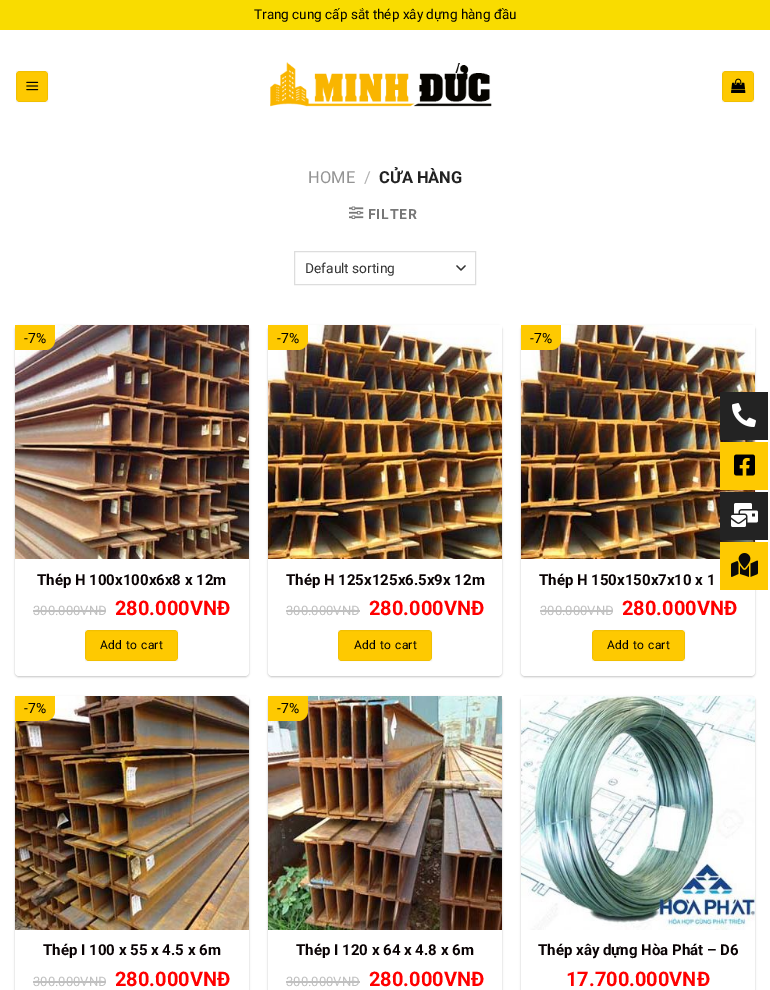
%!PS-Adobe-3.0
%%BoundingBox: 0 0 770 990
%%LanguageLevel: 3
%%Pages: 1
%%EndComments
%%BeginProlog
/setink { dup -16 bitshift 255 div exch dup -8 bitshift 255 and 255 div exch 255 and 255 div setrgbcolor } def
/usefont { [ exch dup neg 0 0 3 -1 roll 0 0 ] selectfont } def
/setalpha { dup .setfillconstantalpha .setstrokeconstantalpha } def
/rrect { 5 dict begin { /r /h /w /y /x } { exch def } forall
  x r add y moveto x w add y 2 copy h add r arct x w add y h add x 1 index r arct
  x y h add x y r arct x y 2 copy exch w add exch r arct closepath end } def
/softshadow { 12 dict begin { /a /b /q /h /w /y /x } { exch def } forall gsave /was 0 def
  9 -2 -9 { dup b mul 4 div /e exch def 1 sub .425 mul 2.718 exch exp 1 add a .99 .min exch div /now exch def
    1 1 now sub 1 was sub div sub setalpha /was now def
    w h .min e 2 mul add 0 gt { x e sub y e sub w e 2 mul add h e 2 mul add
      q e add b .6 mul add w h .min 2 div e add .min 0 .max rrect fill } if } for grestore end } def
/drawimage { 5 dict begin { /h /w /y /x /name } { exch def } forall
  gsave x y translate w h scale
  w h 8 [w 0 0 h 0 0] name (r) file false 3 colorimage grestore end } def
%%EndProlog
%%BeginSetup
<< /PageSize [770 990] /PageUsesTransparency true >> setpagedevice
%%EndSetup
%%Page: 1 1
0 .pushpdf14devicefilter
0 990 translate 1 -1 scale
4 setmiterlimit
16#FFFFFF setink
0 0 770 990 rectfill
16#F9DC00 setink
0 0 770 30 rectfill
/Roboto-Regular 13.5 usefont
16#000000 setink
254 19 moveto (Trang cung cấp sắt thép xây dựng hàng đầu) show
16#FEC901 setink
16 71 32 31 4 rrect fill
0.05 setalpha
16#000000 setink
16.5 71.5 31 30 rectstroke
1 setalpha
(img1.raw) 26 81 13 10 drawimage
(img2.raw) 270 62 222 45 drawimage
16#FEC901 setink
722 71 32 31 4 rrect fill
0.05 setalpha
16#000000 setink
722.5 71.5 31 30 rectstroke
1 setalpha
(img3.raw) 731 78 15 15 drawimage
/Roboto-Regular 16.5 usefont
16#949494 setink
308 183 moveto (HOME) show
16#B2B2B2 setink
364 183 moveto (/) show
/Roboto-Bold 16.5 usefont
16#222222 setink
379 183 moveto (CỬA HÀNG) show
(img4.raw) 349 206 15 13 drawimage
/Roboto-Bold 14 usefont
16#777777 setink
368 219 moveto 0.75 0 (FILTER) ashow
16#333333 setink
1.3 setlinewidth
1 setlinecap
1 setlinejoin
457 266 moveto 461 270 lineto 465 266 lineto stroke
16#DDDDDD setink
1 setlinewidth
0 setlinecap
0 setlinejoin
294.5 251.5 181 33 rectstroke
/Roboto-Regular 13.75 usefont
16#333333 setink
305 273 moveto (Default sorting) show
16#000000 setink
15 326 234 351 4 1 0.24 softshadow
16#FFFFFF setink
15 325 234 351 4 rrect fill
(img5.raw) 15 325 234 234 drawimage
16#FEC901 setink
15 325 moveto 55 325 lineto 55 340 lineto 55 345.5 50.5 350 45 350 curveto 15 350 lineto closepath fill
/Roboto-Regular 14 usefont
16#000000 setink
24 343 moveto (-7%) show
/Roboto-Bold 15 usefont
16#0A0304 setink
37 585 moveto (Thép H 100x100x6x8 x 12m) show
/Roboto-Regular 13 usefont
16#C0C0C0 setink
33 615 moveto (300.000VNĐ) show
33 610 73 2 rectfill
/Roboto-Bold 20 usefont
16#FF0000 setink
115 615 moveto (280.000VNĐ) show
16#FEC901 setink
85 630 93 31 4 rrect fill
0.05 setalpha
16#000000 setink
85.5 630.5 92 30 rectstroke
/Roboto-Regular 12 usefont
1 setalpha
100 649 moveto 0.4 0 (Add to cart) ashow
268 326 234 351 4 1 0.24 softshadow
16#FFFFFF setink
268 325 234 351 4 rrect fill
(img6.raw) 268 325 234 234 drawimage
16#FEC901 setink
268 325 moveto 308 325 lineto 308 340 lineto 308 345.5 303.5 350 298 350 curveto 268 350 lineto closepath fill
/Roboto-Regular 14 usefont
16#000000 setink
277 343 moveto (-7%) show
/Roboto-Bold 15 usefont
16#0A0304 setink
286 585 moveto (Thép H 125x125x6.5x9x 12m) show
/Roboto-Regular 13 usefont
16#C0C0C0 setink
286 615 moveto (300.000VNĐ) show
286 610 74 2 rectfill
/Roboto-Bold 20 usefont
16#FF0000 setink
369 615 moveto (280.000VNĐ) show
16#FEC901 setink
338 630 94 31 4 rrect fill
0.05 setalpha
16#000000 setink
338.5 630.5 93 30 rectstroke
/Roboto-Regular 12 usefont
1 setalpha
354 649 moveto 0.4 0 (Add to cart) ashow
521 326 234 351 4 1 0.24 softshadow
16#FFFFFF setink
521 325 234 351 4 rrect fill
(img7.raw) 521 325 234 234 drawimage
16#FEC901 setink
521 325 moveto 561 325 lineto 561 340 lineto 561 345.5 556.5 350 551 350 curveto 521 350 lineto closepath fill
/Roboto-Regular 14 usefont
16#000000 setink
530 343 moveto (-7%) show
/Roboto-Bold 15 usefont
16#0A0304 setink
539 585 moveto (Thép H 150x150x7x10 x 1) show
/Roboto-Regular 13 usefont
16#C0C0C0 setink
540 615 moveto (300.000VNĐ) show
540 610 73 2 rectfill
/Roboto-Bold 20 usefont
16#FF0000 setink
622 615 moveto (280.000VNĐ) show
16#FEC901 setink
592 630 93 31 4 rrect fill
0.05 setalpha
16#000000 setink
592.5 630.5 92 30 rectstroke
/Roboto-Regular 12 usefont
1 setalpha
607 649 moveto 0.4 0 (Add to cart) ashow
15 697 234 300 4 1 0.24 softshadow
16#FFFFFF setink
15 930 234 60 rectfill
(img8.raw) 15 696 234 234 drawimage
16#FEC901 setink
15 696 moveto 55 696 lineto 55 711 lineto 55 716.5 50.5 721 45 721 curveto 15 721 lineto closepath fill
/Roboto-Regular 14 usefont
16#000000 setink
24 713 moveto (-7%) show
/Roboto-Bold 15 usefont
16#0A0304 setink
43 955 moveto (Thép I 100 x 55 x 4.5 x 6m) show
/Roboto-Regular 13 usefont
16#C0C0C0 setink
33 986 moveto (300.000VNĐ) show
33 981 73 2 rectfill
/Roboto-Bold 20 usefont
16#FF0000 setink
115 986 moveto (280.000VNĐ) show
16#000000 setink
268 697 234 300 4 1 0.24 softshadow
16#FFFFFF setink
268 930 234 60 rectfill
(img9.raw) 268 696 234 234 drawimage
16#FEC901 setink
268 696 moveto 308 696 lineto 308 711 lineto 308 716.5 303.5 721 298 721 curveto 268 721 lineto closepath fill
/Roboto-Regular 14 usefont
16#000000 setink
277 713 moveto (-7%) show
/Roboto-Bold 15 usefont
16#0A0304 setink
296 955 moveto (Thép I 120 x 64 x 4.8 x 6m) show
/Roboto-Regular 13 usefont
16#C0C0C0 setink
286 986 moveto (300.000VNĐ) show
286 981 74 2 rectfill
/Roboto-Bold 20 usefont
16#FF0000 setink
369 986 moveto (280.000VNĐ) show
16#000000 setink
521 697 234 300 4 1 0.24 softshadow
16#FFFFFF setink
521 930 234 60 rectfill
(img10.raw) 521 696 234 234 drawimage
/Roboto-Bold 15 usefont
16#0A0304 setink
538 955 moveto (Thép xây dựng Hòa Phát – D6) show
/Roboto-Bold 20 usefont
16#FF0000 setink
566 986 moveto (17.700.000VNĐ) show
16#232323 setink
720 392 48 48 rectfill
(img11.raw) 732 403 24 24 drawimage
16#FEC901 setink
720 442 48 48 rectfill
(img12.raw) 734 454 21 22 drawimage
16#232323 setink
720 492 48 48 rectfill
(img13.raw) 731 503 27 24 drawimage
16#FEC901 setink
720 542 48 48 rectfill
(img14.raw) 731 553 27 24 drawimage
.poppdf14devicefilter showpage
%%EOF
